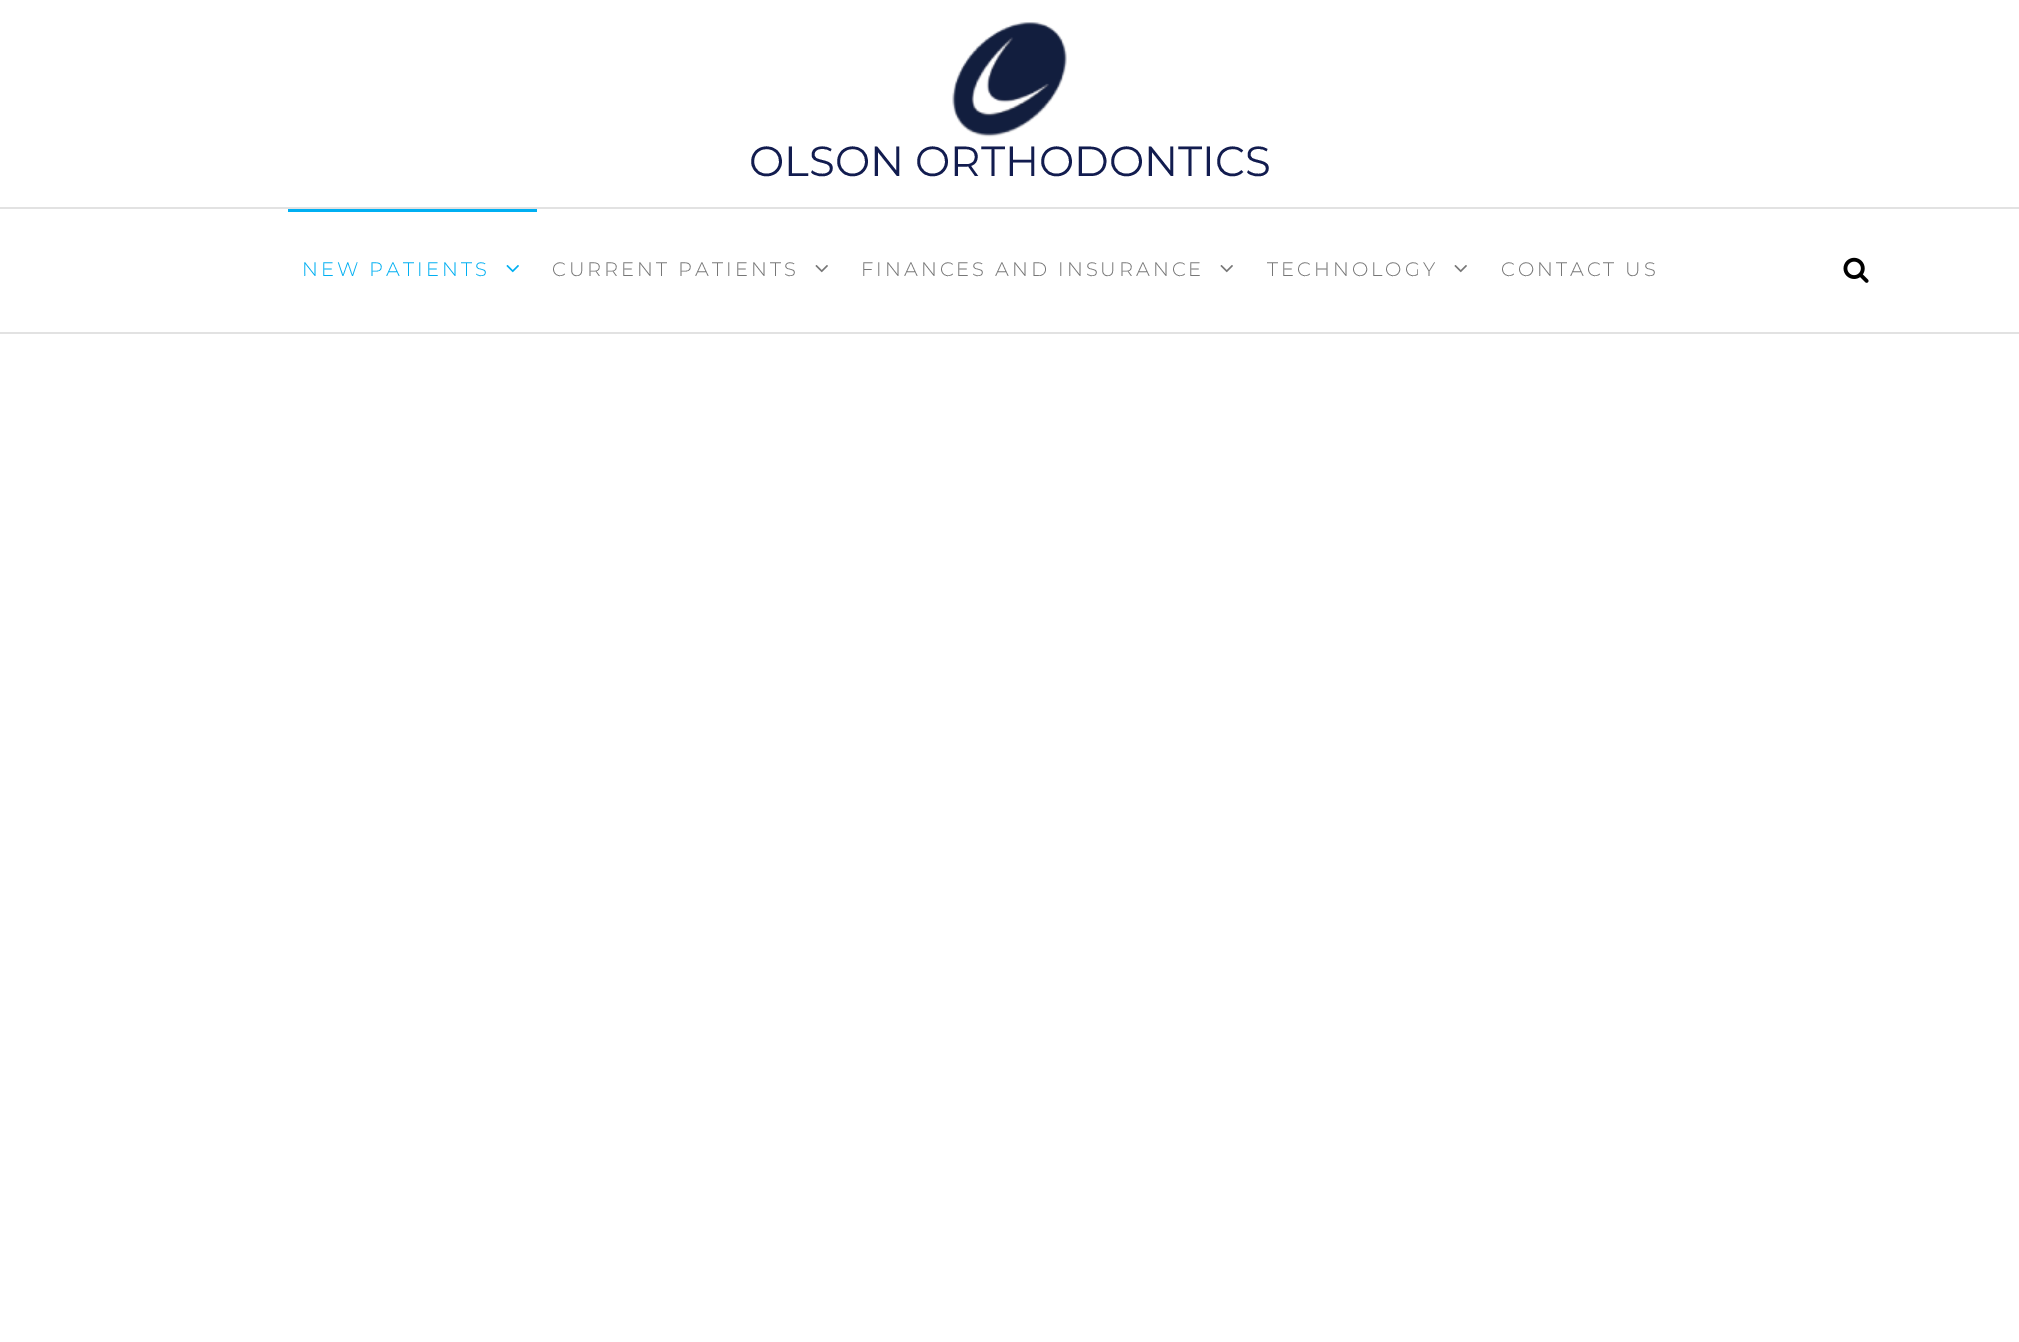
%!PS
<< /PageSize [2019 1342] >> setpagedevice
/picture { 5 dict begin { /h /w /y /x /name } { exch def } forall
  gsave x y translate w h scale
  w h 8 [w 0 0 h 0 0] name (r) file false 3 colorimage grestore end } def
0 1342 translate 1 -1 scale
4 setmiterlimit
1 setgray
0 0 2019 1342 rectfill
0.886 setgray
0 207 2019 2 rectfill
(img1.rgb) 952 22 115 115 picture
/Montserrat-Regular [42 0 0 -42 0 0] selectfont
0.071 0.11 0.31 setrgbcolor
749 176 moveto (OLSON ORTHODONTICS) show
0.886 setgray
0 332 2019 2 rectfill
0 0.686 0.949 setrgbcolor
288 209 249 3 rectfill
/Montserrat-Light [19.5 0 0 -19.5 0 0] selectfont
302 276 moveto 3 0 (NEW PATIENTS) ashow
(img2.rgb) 506 265 13 8 picture
0.467 setgray
552 276 moveto 3 0 (CURRENT PATIENTS) ashow
(img3.rgb) 815 265 13 8 picture
861 276 moveto 3 0 (FINANCES AND INSURANCE) ashow
(img3.rgb) 1220 265 13 8 picture
1267 276 moveto 3 0 (TECHNOLOGY) ashow
(img3.rgb) 1454 265 13 8 picture
1501 276 moveto 3 0 (CONTACT US) ashow
(img4.rgb) 1843 257 26 26 picture
showpage
